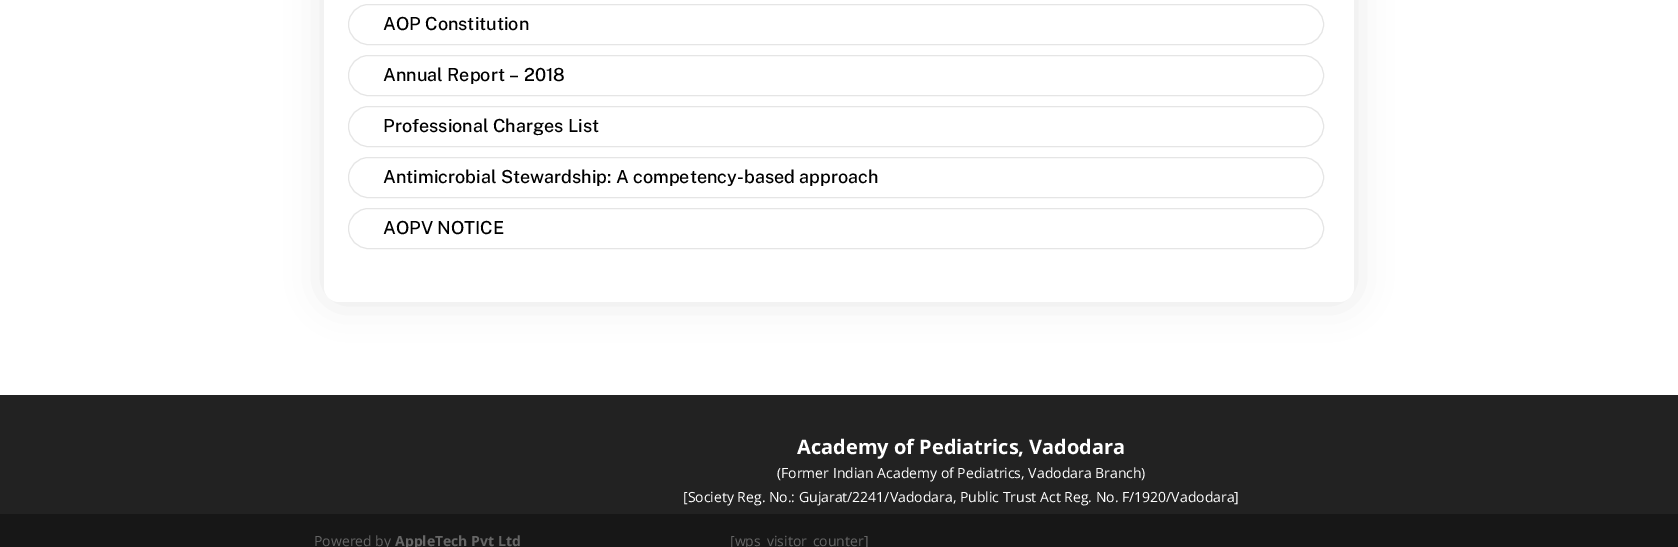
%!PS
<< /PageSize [1678 547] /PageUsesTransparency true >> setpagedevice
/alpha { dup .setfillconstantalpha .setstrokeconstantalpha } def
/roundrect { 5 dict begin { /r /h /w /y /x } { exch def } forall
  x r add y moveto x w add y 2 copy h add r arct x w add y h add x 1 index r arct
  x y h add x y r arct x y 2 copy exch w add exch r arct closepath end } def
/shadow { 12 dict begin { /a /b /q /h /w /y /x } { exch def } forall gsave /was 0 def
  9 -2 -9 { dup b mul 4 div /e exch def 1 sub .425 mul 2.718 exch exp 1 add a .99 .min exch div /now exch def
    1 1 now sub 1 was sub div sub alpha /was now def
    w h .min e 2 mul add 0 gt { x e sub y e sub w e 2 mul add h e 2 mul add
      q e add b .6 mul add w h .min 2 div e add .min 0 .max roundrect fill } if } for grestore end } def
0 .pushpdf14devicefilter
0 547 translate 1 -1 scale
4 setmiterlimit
1 setgray
0 0 1678 547 rectfill
0 setgray
324 -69 1030 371 15 18 0.1 shadow
1 setgray
324 -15 1030 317 15 roundrect fill
0.898 setgray
348.5 4.5 975 40 20 roundrect stroke
/PublicSans-Medium [18 0 0 -18 0 0] selectfont
0 setgray
383 30 moveto (AOP Constitution) show
0.898 setgray
348.5 55.5 975 40 20 roundrect stroke
0 setgray
383 81 moveto (Annual Report – 2018) show
0.898 setgray
348.5 106.5 975 40 20 roundrect stroke
0 setgray
383 132 moveto (Professional Charges List) show
0.898 setgray
348.5 157.5 975 40 20 roundrect stroke
0 setgray
383 183 moveto (Antimicrobial Stewardship: A competency-based approach) show
0.898 setgray
348.5 208.5 975 40 20 roundrect stroke
0 setgray
383 234 moveto (AOPV NOTICE) show
0.133 setgray
0 395 1678 119 rectfill
/OpenSans-Bold [20 0 0 -20 0 0] selectfont
1 setgray
797 454 moveto (Academy of Pediatrics, Vadodara) show
/OpenSans-Regular [14 0 0 -14 0 0] selectfont
777 478 moveto (\(Former Indian Academy of Pediatrics, Vadodara Branch\)) show
683 502 moveto ([Society Reg. No.: Gujarat/2241/Vadodara, Public Trust Act Reg. No. F/1920/Vadodara]) show
0.09 setgray
0 514 1678 33 rectfill
0.4 setgray
314 546 moveto (Powered by) show
/OpenSans-Bold [14 0 0 -14 0 0] selectfont
395 546 moveto (AppleTech Pvt Ltd) show
/OpenSans-Regular [14 0 0 -14 0 0] selectfont
730 546 moveto ([wps_visitor_counter]) show
.poppdf14devicefilter showpage
